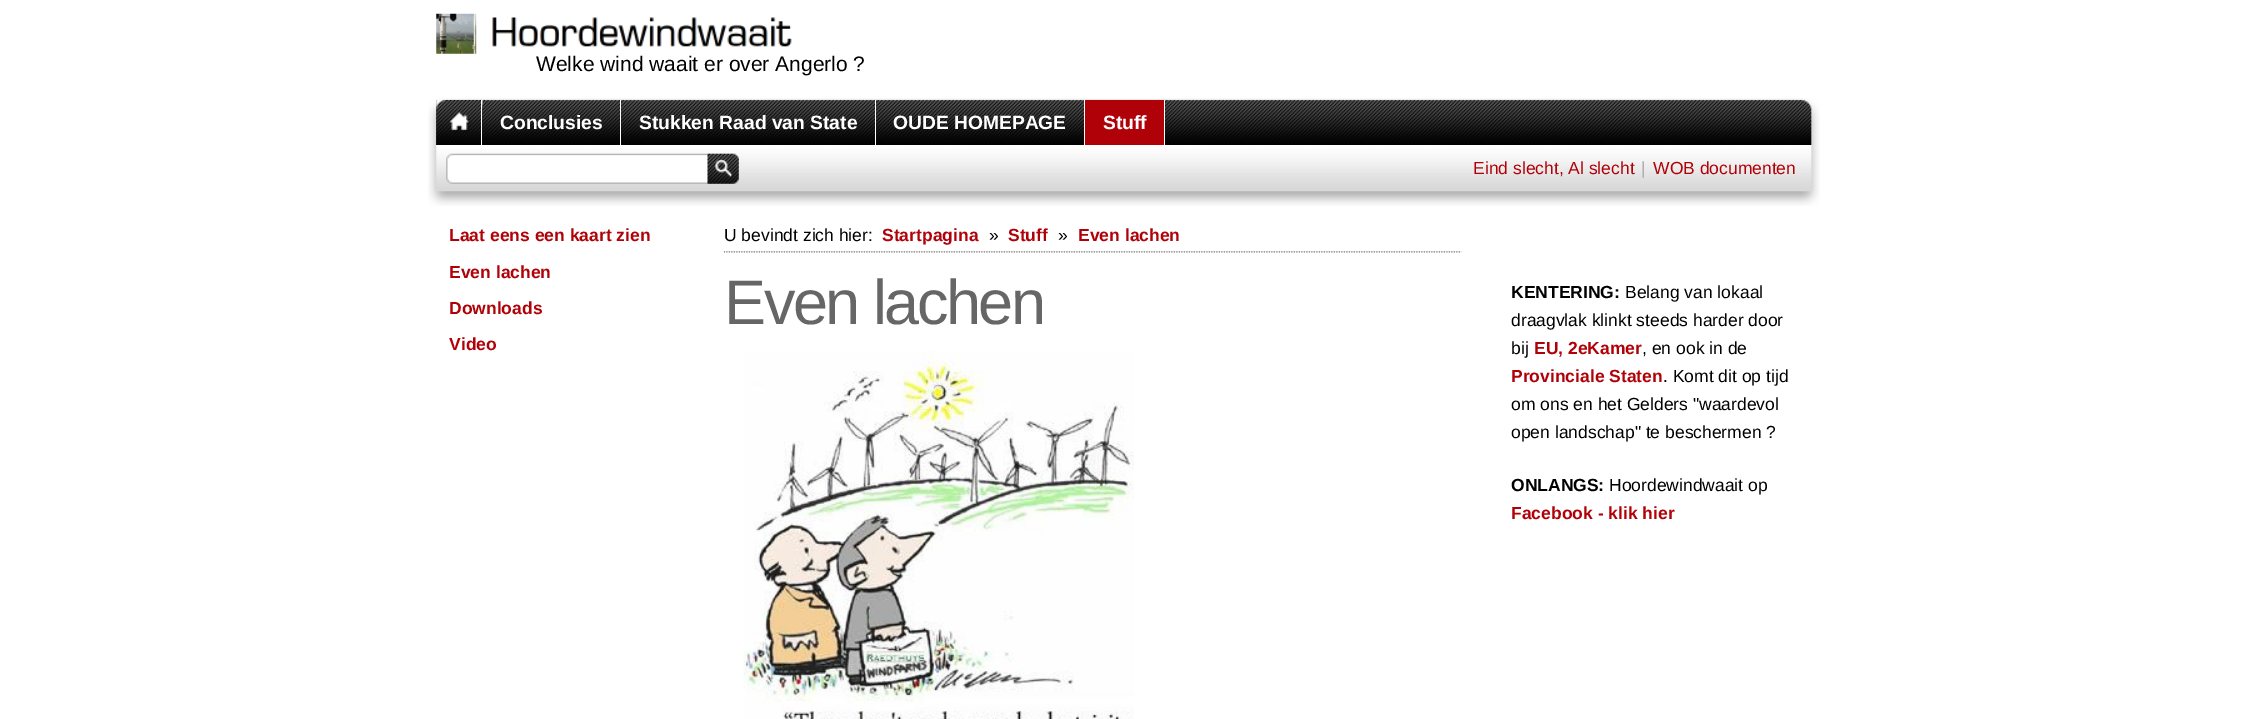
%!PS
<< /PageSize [2247 719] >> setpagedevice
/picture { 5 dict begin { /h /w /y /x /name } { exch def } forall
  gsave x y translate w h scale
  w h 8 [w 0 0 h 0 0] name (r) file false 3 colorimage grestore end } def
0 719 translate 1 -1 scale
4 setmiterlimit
1 setgray
0 0 2247 719 rectfill
(img1.rgb) 436 13 41 41 picture
(img2.rgb) 492 17 300 30 picture
/LiberationSans-Regular [21 0 0 -21 0 0] selectfont
0 setgray
536 71 moveto (Welke wind waait er over Angerlo ?) show
(img3.rgb) 428 98 1392 47 picture
(img4.rgb) 436 100 47 45 picture
1 setgray
481 100 1 45 rectfill
620 100 1 45 rectfill
/LiberationSans-Bold [19.25 0 0 -19.25 0 0] selectfont
500 129 moveto (Conclusies) show
875 100 1 45 rectfill
639 129 moveto (Stukken Raad van State) show
1084 100 1 45 rectfill
893 129 moveto (OUDE HOMEPAGE) show
0.694 0.004 0.031 setrgbcolor
1085 100 79 45 rectfill
1 setgray
1164 100 1 45 rectfill
1103 129 moveto (Stuff) show
(img5.rgb) 428 145 1392 61 picture
(img6.rgb) 446 153 293 31 picture
(img7.rgb) 707 153 32 31 picture
/LiberationSans-Regular [17.5 0 0 -17.5 0 0] selectfont
0.694 0.004 0.031 setrgbcolor
1473 174 moveto (Eind slecht, Al slecht) show
0.686 setgray
1641 174 moveto (|) show
0.694 0.004 0.031 setrgbcolor
1653 174 moveto (WOB documenten) show
/LiberationSans-Bold [17.5 0 0 -17.5 0 0] selectfont
449 241 moveto (Laat eens een kaart zien) show
449 278 moveto (Even lachen) show
449 314 moveto (Downloads) show
449 350 moveto (Video) show
(img8.rgb) 723 251 739 2 picture
/LiberationSans-Regular [17.5 0 0 -17.5 0 0] selectfont
0 setgray
724 241 moveto (U bevindt zich hier:) show
/LiberationSans-Bold [17.5 0 0 -17.5 0 0] selectfont
0.694 0.004 0.031 setrgbcolor
882 241 moveto (Startpagina) show
/LiberationSans-Regular [17.5 0 0 -17.5 0 0] selectfont
0 setgray
989 241 moveto (») show
/LiberationSans-Bold [17.5 0 0 -17.5 0 0] selectfont
0.694 0.004 0.031 setrgbcolor
1008 241 moveto (Stuff) show
/LiberationSans-Regular [17.5 0 0 -17.5 0 0] selectfont
0 setgray
1058 241 moveto (») show
/LiberationSans-Bold [17.5 0 0 -17.5 0 0] selectfont
0.694 0.004 0.031 setrgbcolor
1078 241 moveto (Even lachen) show
/LiberationSans-Regular [63 0 0 -63 0 0] selectfont
0.4 setgray
724 324 moveto -2.5 0 (Even lachen) ashow
(img9.rgb) 743 351 391 368 picture
/LiberationSans-Bold [17.5 0 0 -17.5 0 0] selectfont
0 setgray
1511 298 moveto (KENTERING:) show
/LiberationSans-Regular [17.5 0 0 -17.5 0 0] selectfont
1625 298 moveto (Belang van lokaal) show
1511 326 moveto (draagvlak klinkt steeds harder door) show
1511 354 moveto (bij) show
/LiberationSans-Bold [17.5 0 0 -17.5 0 0] selectfont
0.694 0.004 0.031 setrgbcolor
1534 354 moveto (EU, 2eKamer) show
/LiberationSans-Regular [17.5 0 0 -17.5 0 0] selectfont
0 setgray
1642 354 moveto (, en ook in de) show
/LiberationSans-Bold [17.5 0 0 -17.5 0 0] selectfont
0.694 0.004 0.031 setrgbcolor
1511 382 moveto (Provinciale Staten) show
/LiberationSans-Regular [17.5 0 0 -17.5 0 0] selectfont
0 setgray
1663 382 moveto (. Komt dit op tijd) show
1511 410 moveto (om ons en het Gelders "waardevol) show
1511 438 moveto (open landschap" te beschermen ?) show
/LiberationSans-Bold [17.5 0 0 -17.5 0 0] selectfont
1511 491 moveto (ONLANGS:) show
/LiberationSans-Regular [17.5 0 0 -17.5 0 0] selectfont
1609 491 moveto (Hoordewindwaait op) show
/LiberationSans-Bold [17.5 0 0 -17.5 0 0] selectfont
0.694 0.004 0.031 setrgbcolor
1511 519 moveto (Facebook - klik hier) show
showpage
